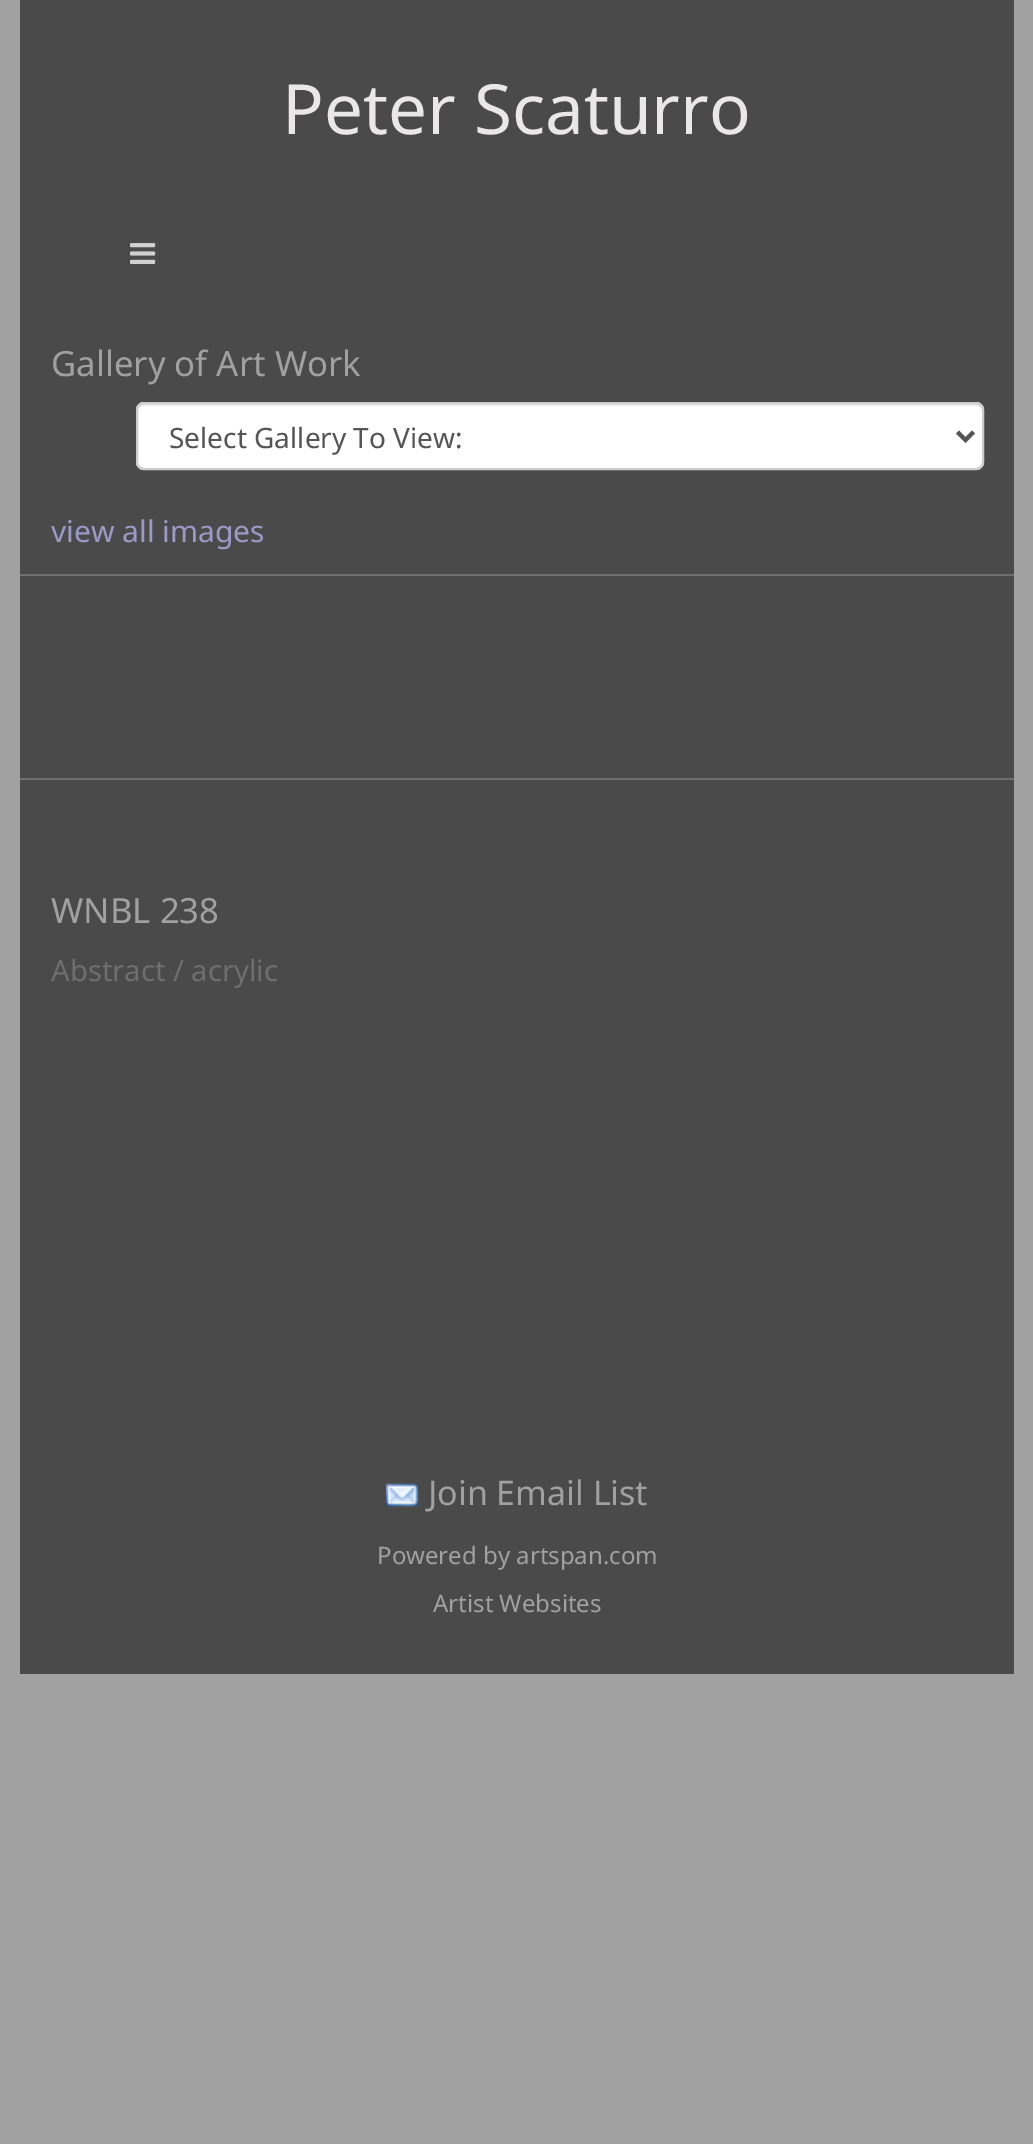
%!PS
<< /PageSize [1033 2144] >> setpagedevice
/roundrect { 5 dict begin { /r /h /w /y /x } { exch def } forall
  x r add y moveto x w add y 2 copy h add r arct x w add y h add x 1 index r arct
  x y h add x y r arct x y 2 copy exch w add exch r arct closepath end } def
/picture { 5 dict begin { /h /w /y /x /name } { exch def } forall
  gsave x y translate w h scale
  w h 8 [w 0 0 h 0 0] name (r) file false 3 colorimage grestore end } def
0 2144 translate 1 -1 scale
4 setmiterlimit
0.631 setgray
0 0 1033 2144 rectfill
0.29 setgray
20 0 994 1674 rectfill
/NotoSans-Regular [69.25 0 0 -69.25 0 0] selectfont
0.914 0.906 0.906 setrgbcolor
282 134 moveto (Peter Scaturro) show
(img1.rgb) 130 243 26 21 picture
/NotoSans-Regular [34.75 0 0 -34.75 0 0] selectfont
0.631 setgray
51 376 moveto (Gallery of Art Work) show
1 setgray
136 402 848 68 8 roundrect fill
0.925 setgray
newpath 144 406 moveto 976 406 lineto 979 406 982 409 982 412 curveto 982 408 981 404 976 404 curveto 144 404 lineto 139 404 138 408 138 412 curveto 138 409 141 406 144 406 curveto closepath fill
0.8 setgray
2 setlinewidth
137 403 846 66 7 roundrect stroke
0.333 setgray
4 setlinewidth
newpath 957.5 432 moveto 965.5 440 lineto 973.5 432 lineto stroke
/NotoSans-Regular [28 0 0 -28 0 0] selectfont
169 448 moveto (Select Gallery To View:) show
/NotoSans-Regular [30 0 0 -30 0 0] selectfont
0.604 0.604 0.776 setrgbcolor
51 542 moveto (view all images) show
0.439 0.431 0.431 setrgbcolor
20 574 994 2 rectfill
20 778 994 2 rectfill
/NotoSans-Regular [34.75 0 0 -34.75 0 0] selectfont
0.631 setgray
51 923 moveto (WNBL 238) show
/NotoSans-Regular [29.25 0 0 -29.25 0 0] selectfont
0.439 0.431 0.431 setrgbcolor
51 981 moveto (Abstract / acrylic) show
(img2.rgb) 386 1483 32 24 picture
/NotoSans-Regular [34 0 0 -34 0 0] selectfont
0.631 setgray
428 1505 moveto (Join Email List) show
/NotoSans-Regular [24 0 0 -24 0 0] selectfont
377 1564 moveto (Powered by artspan.com) show
433 1612 moveto (Artist Websites) show
showpage
